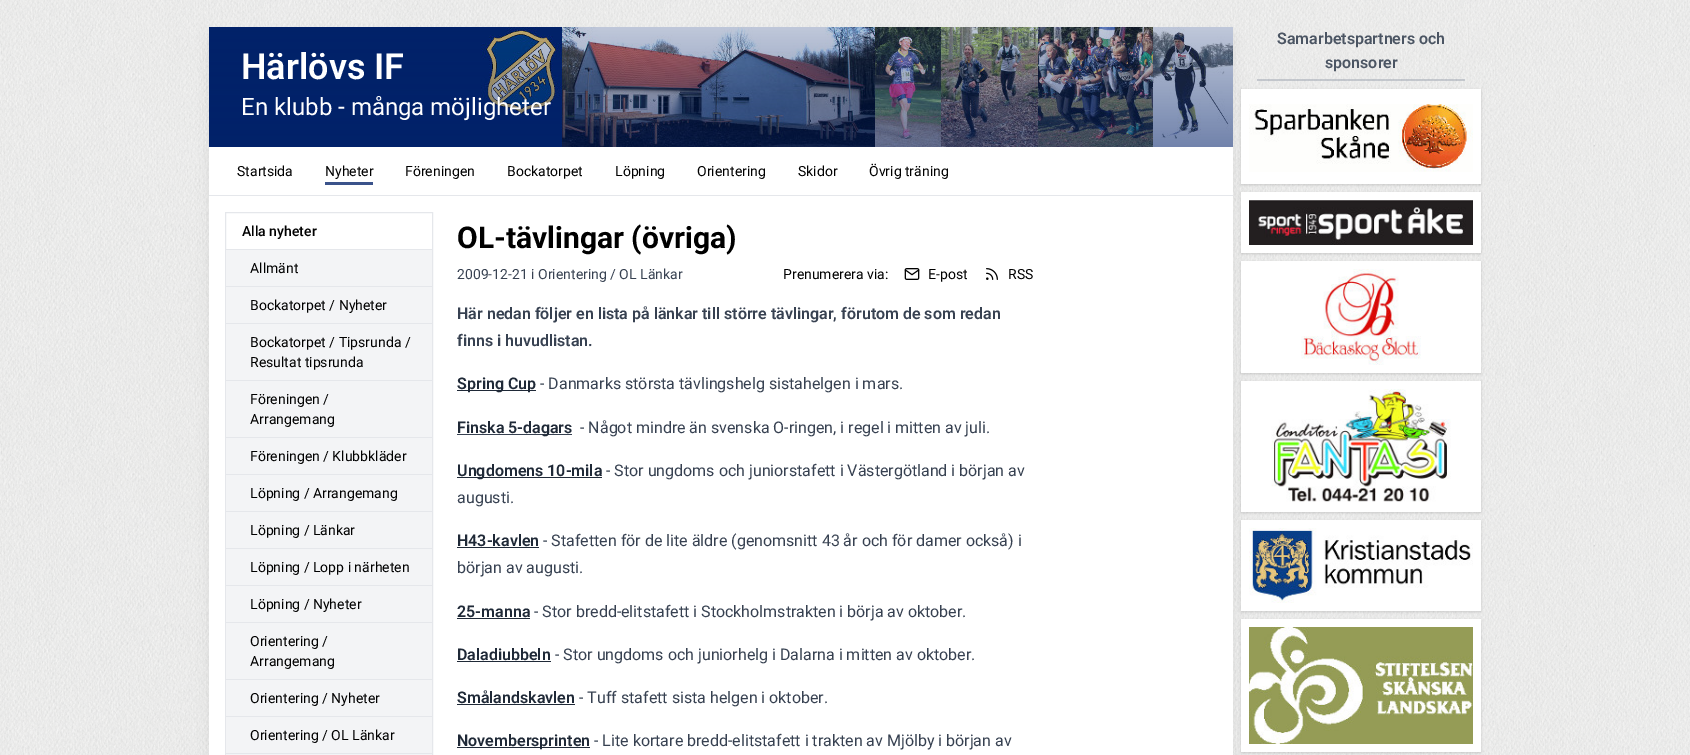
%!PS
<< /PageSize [1690 755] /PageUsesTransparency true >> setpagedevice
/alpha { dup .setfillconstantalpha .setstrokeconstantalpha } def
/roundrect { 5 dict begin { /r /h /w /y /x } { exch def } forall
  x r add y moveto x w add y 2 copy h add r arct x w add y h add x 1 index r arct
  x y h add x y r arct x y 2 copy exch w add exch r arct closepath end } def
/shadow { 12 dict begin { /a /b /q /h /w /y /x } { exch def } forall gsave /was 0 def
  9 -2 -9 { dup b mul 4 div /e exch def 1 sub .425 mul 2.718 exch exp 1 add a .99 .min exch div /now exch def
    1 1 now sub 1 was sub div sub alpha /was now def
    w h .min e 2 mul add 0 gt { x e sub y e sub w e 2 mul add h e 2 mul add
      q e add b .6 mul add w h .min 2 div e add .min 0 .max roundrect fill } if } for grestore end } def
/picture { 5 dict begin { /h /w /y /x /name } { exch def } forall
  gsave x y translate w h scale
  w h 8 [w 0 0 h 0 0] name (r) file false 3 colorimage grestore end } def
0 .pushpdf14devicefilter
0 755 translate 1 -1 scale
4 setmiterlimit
1 setgray
0 0 1690 755 rectfill
(img1.rgb) 0 0 1690 755 picture
0 setgray
212 40 1018 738 0 7.5 0.1 shadow
1 setgray
209 147 1024 608 rectfill
(img2.rgb) 209 27 1024 120 picture
/Roboto-SemiBold [36 0 0 -36 0 0] selectfont
241 79 moveto (Härlövs IF) show
/Roboto-Regular [24 0 0 -24 0 0] selectfont
241 115 moveto (En klubb - många möjligheter) show
0.898 0.906 0.922 setrgbcolor
209 195 1024 1 rectfill
/Roboto-Regular [14 0 0 -14 0 0] selectfont
0 setgray
237 176 moveto (Startsida) show
0.231 0.325 0.545 setrgbcolor
325 182 48 3 rectfill
0 setgray
325 176 moveto (Nyheter) show
405 176 moveto (Föreningen) show
507 176 moveto (Bockatorpet) show
615 176 moveto (Löpning) show
697 176 moveto (Orientering) show
798 176 moveto (Skidor) show
869 176 moveto (Övrig träning) show
0.898 0.906 0.922 setrgbcolor
225.5 212.5 207 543 rectstroke
/Roboto-Medium [14 0 0 -14 0 0] selectfont
0 setgray
242 236 moveto (Alla nyheter) show
0.898 0.906 0.922 setrgbcolor
226 249 206 1 rectfill
0.953 0.957 0.965 setrgbcolor
226 250 206 36 rectfill
/Roboto-Regular [14 0 0 -14 0 0] selectfont
0 setgray
250 273 moveto (Allmänt) show
0.898 0.906 0.922 setrgbcolor
226 286 206 1 rectfill
0.953 0.957 0.965 setrgbcolor
226 287 206 36 rectfill
0 setgray
250 310 moveto (Bockatorpet / Nyheter) show
0.898 0.906 0.922 setrgbcolor
226 323 206 1 rectfill
0.953 0.957 0.965 setrgbcolor
226 324 206 56 rectfill
0 setgray
250 347 moveto (Bockatorpet / Tipsrunda /) show
250 367 moveto (Resultat tipsrunda) show
0.898 0.906 0.922 setrgbcolor
226 380 206 1 rectfill
0.953 0.957 0.965 setrgbcolor
226 381 206 56 rectfill
0 setgray
250 404 moveto (Föreningen /) show
250 424 moveto (Arrangemang) show
0.898 0.906 0.922 setrgbcolor
226 437 206 1 rectfill
0.953 0.957 0.965 setrgbcolor
226 438 206 36 rectfill
0 setgray
250 461 moveto (Föreningen / Klubbkläder) show
0.898 0.906 0.922 setrgbcolor
226 474 206 1 rectfill
0.953 0.957 0.965 setrgbcolor
226 475 206 36 rectfill
0 setgray
250 498 moveto (Löpning / Arrangemang) show
0.898 0.906 0.922 setrgbcolor
226 511 206 1 rectfill
0.953 0.957 0.965 setrgbcolor
226 512 206 36 rectfill
0 setgray
250 535 moveto (Löpning / Länkar) show
0.898 0.906 0.922 setrgbcolor
226 548 206 1 rectfill
0.953 0.957 0.965 setrgbcolor
226 549 206 36 rectfill
0 setgray
250 572 moveto (Löpning / Lopp i närheten) show
0.898 0.906 0.922 setrgbcolor
226 585 206 1 rectfill
0.953 0.957 0.965 setrgbcolor
226 586 206 36 rectfill
0 setgray
250 609 moveto (Löpning / Nyheter) show
0.898 0.906 0.922 setrgbcolor
226 622 206 1 rectfill
0.953 0.957 0.965 setrgbcolor
226 623 206 56 rectfill
0 setgray
250 646 moveto (Orientering /) show
250 666 moveto (Arrangemang) show
0.898 0.906 0.922 setrgbcolor
226 679 206 1 rectfill
0.953 0.957 0.965 setrgbcolor
226 680 206 36 rectfill
0 setgray
250 703 moveto (Orientering / Nyheter) show
0.898 0.906 0.922 setrgbcolor
226 716 206 1 rectfill
0.953 0.957 0.965 setrgbcolor
226 717 206 36 rectfill
0 setgray
250 740 moveto (Orientering / OL Länkar) show
0.898 0.906 0.922 setrgbcolor
226 753 206 1 rectfill
0.953 0.957 0.965 setrgbcolor
226 754 206 1 rectfill
/Roboto-Bold [30 0 0 -30 0 0] selectfont
0 setgray
457 248 moveto (OL-tävlingar \(övriga\)) show
/Roboto-Regular [14 0 0 -14 0 0] selectfont
0.216 0.255 0.318 setrgbcolor
457 279 moveto (2009-12-21 i Orientering / OL Länkar) show
0 setgray
783 279 moveto (Prenumerera via:) show
(img3.rgb) 904 268 16 12 picture
928 279 moveto (E-post) show
(img4.rgb) 986 268 12 12 picture
1008 279 moveto (RSS) show
/Roboto-SemiBold [16 0 0 -16 0 0] selectfont
0.216 0.255 0.318 setrgbcolor
457 319 moveto (Här nedan följer en lista på länkar till större tävlingar, förutom de som redan) show
457 346 moveto (finns i huvudlistan.) show
0.122 0.161 0.216 setrgbcolor
457 390 79 1 rectfill
457 389 moveto (Spring Cup) show
/Roboto-Regular [16 0 0 -16 0 0] selectfont
0.216 0.255 0.318 setrgbcolor
540 389 moveto (- Danmarks största tävlingshelg sistahelgen i mars.) show
457 434 115 1 rectfill
/Roboto-SemiBold [16 0 0 -16 0 0] selectfont
0.122 0.161 0.216 setrgbcolor
457 433 moveto (Finska 5-dagars) show
/Roboto-Regular [16 0 0 -16 0 0] selectfont
0.216 0.255 0.318 setrgbcolor
580 433 moveto (- Något mindre än svenska O-ringen, i regel i mitten av juli.) show
0.122 0.161 0.216 setrgbcolor
457 477 145 1 rectfill
/Roboto-SemiBold [16 0 0 -16 0 0] selectfont
457 476 moveto (Ungdomens 10-mila) show
/Roboto-Regular [16 0 0 -16 0 0] selectfont
0.216 0.255 0.318 setrgbcolor
606 476 moveto (- Stor ungdoms och juniorstafett i Västergötland i början av) show
457 503 moveto (augusti.) show
/Roboto-SemiBold [16 0 0 -16 0 0] selectfont
0.122 0.161 0.216 setrgbcolor
457 546 moveto (H43-kavlen) show
457 547 82 1 rectfill
/Roboto-Regular [16 0 0 -16 0 0] selectfont
0.216 0.255 0.318 setrgbcolor
543 546 moveto (- Stafetten för de lite äldre \(genomsnitt 43 år och för damer också\) i) show
457 573 moveto (början av augusti.) show
/Roboto-SemiBold [16 0 0 -16 0 0] selectfont
0.122 0.161 0.216 setrgbcolor
457 617 moveto (25-manna) show
457 618 73 1 rectfill
/Roboto-Regular [16 0 0 -16 0 0] selectfont
0.216 0.255 0.318 setrgbcolor
534 617 moveto (- Stor bredd-elitstafett i Stockholmstrakten i börja av oktober.) show
/Roboto-SemiBold [16 0 0 -16 0 0] selectfont
0.122 0.161 0.216 setrgbcolor
457 660 moveto (Daladiubbeln) show
457 661 94 1 rectfill
/Roboto-Regular [16 0 0 -16 0 0] selectfont
0.216 0.255 0.318 setrgbcolor
555 660 moveto (- Stor ungdoms och juniorhelg i Dalarna i mitten av oktober.) show
/Roboto-SemiBold [16 0 0 -16 0 0] selectfont
0.122 0.161 0.216 setrgbcolor
457 703 moveto (Smålandskavlen) show
457 704 118 1 rectfill
/Roboto-Regular [16 0 0 -16 0 0] selectfont
0.216 0.255 0.318 setrgbcolor
579 703 moveto (- Tuff stafett sista helgen i oktober.) show
0.122 0.161 0.216 setrgbcolor
457 747 133 1 rectfill
/Roboto-SemiBold [16 0 0 -16 0 0] selectfont
457 746 moveto (Novembersprinten) show
/Roboto-Regular [16 0 0 -16 0 0] selectfont
0.216 0.255 0.318 setrgbcolor
594 746 moveto (- Lite kortare bredd-elitstafett i trakten av Mjölby i början av) show
0.5 alpha
0.612 0.639 0.686 setrgbcolor
1257 79 208 2 rectfill
/Roboto-SemiBold [16 0 0 -16 0 0] selectfont
1 alpha
0.294 0.333 0.388 setrgbcolor
1277 44 moveto (Samarbetspartners och) show
1325 68 moveto (sponsorer) show
0 setgray
1242 91 238 93 0 1 0.1 shadow
1241 90 240 95 0 1.5 0.1 shadow
1 setgray
1241 89 240 95 rectfill
(img5.rgb) 1249 104 224 68 picture
0 setgray
1242 194 238 59 0 1 0.1 shadow
1241 193 240 61 0 1.5 0.1 shadow
1 setgray
1241 192 240 61 rectfill
(img6.rgb) 1249 200 224 45 picture
0 setgray
1242 263 238 110 0 1 0.1 shadow
1241 262 240 112 0 1.5 0.1 shadow
1 setgray
1241 261 240 112 rectfill
(img7.rgb) 1301 269 120 96 picture
0 setgray
1242 383 238 129 0 1 0.1 shadow
1241 382 240 131 0 1.5 0.1 shadow
1 setgray
1241 381 240 131 rectfill
(img8.rgb) 1271 389 180 113 picture
0 setgray
1242 522 238 89 0 1 0.1 shadow
1241 521 240 91 0 1.5 0.1 shadow
1 setgray
1241 520 240 91 rectfill
(img9.rgb) 1249 528 224 75 picture
0 setgray
1242 621 238 131 0 1 0.1 shadow
1241 620 240 133 0 1.5 0.1 shadow
1 setgray
1241 619 240 133 rectfill
(img10.rgb) 1249 627 224 117 picture
.poppdf14devicefilter showpage
